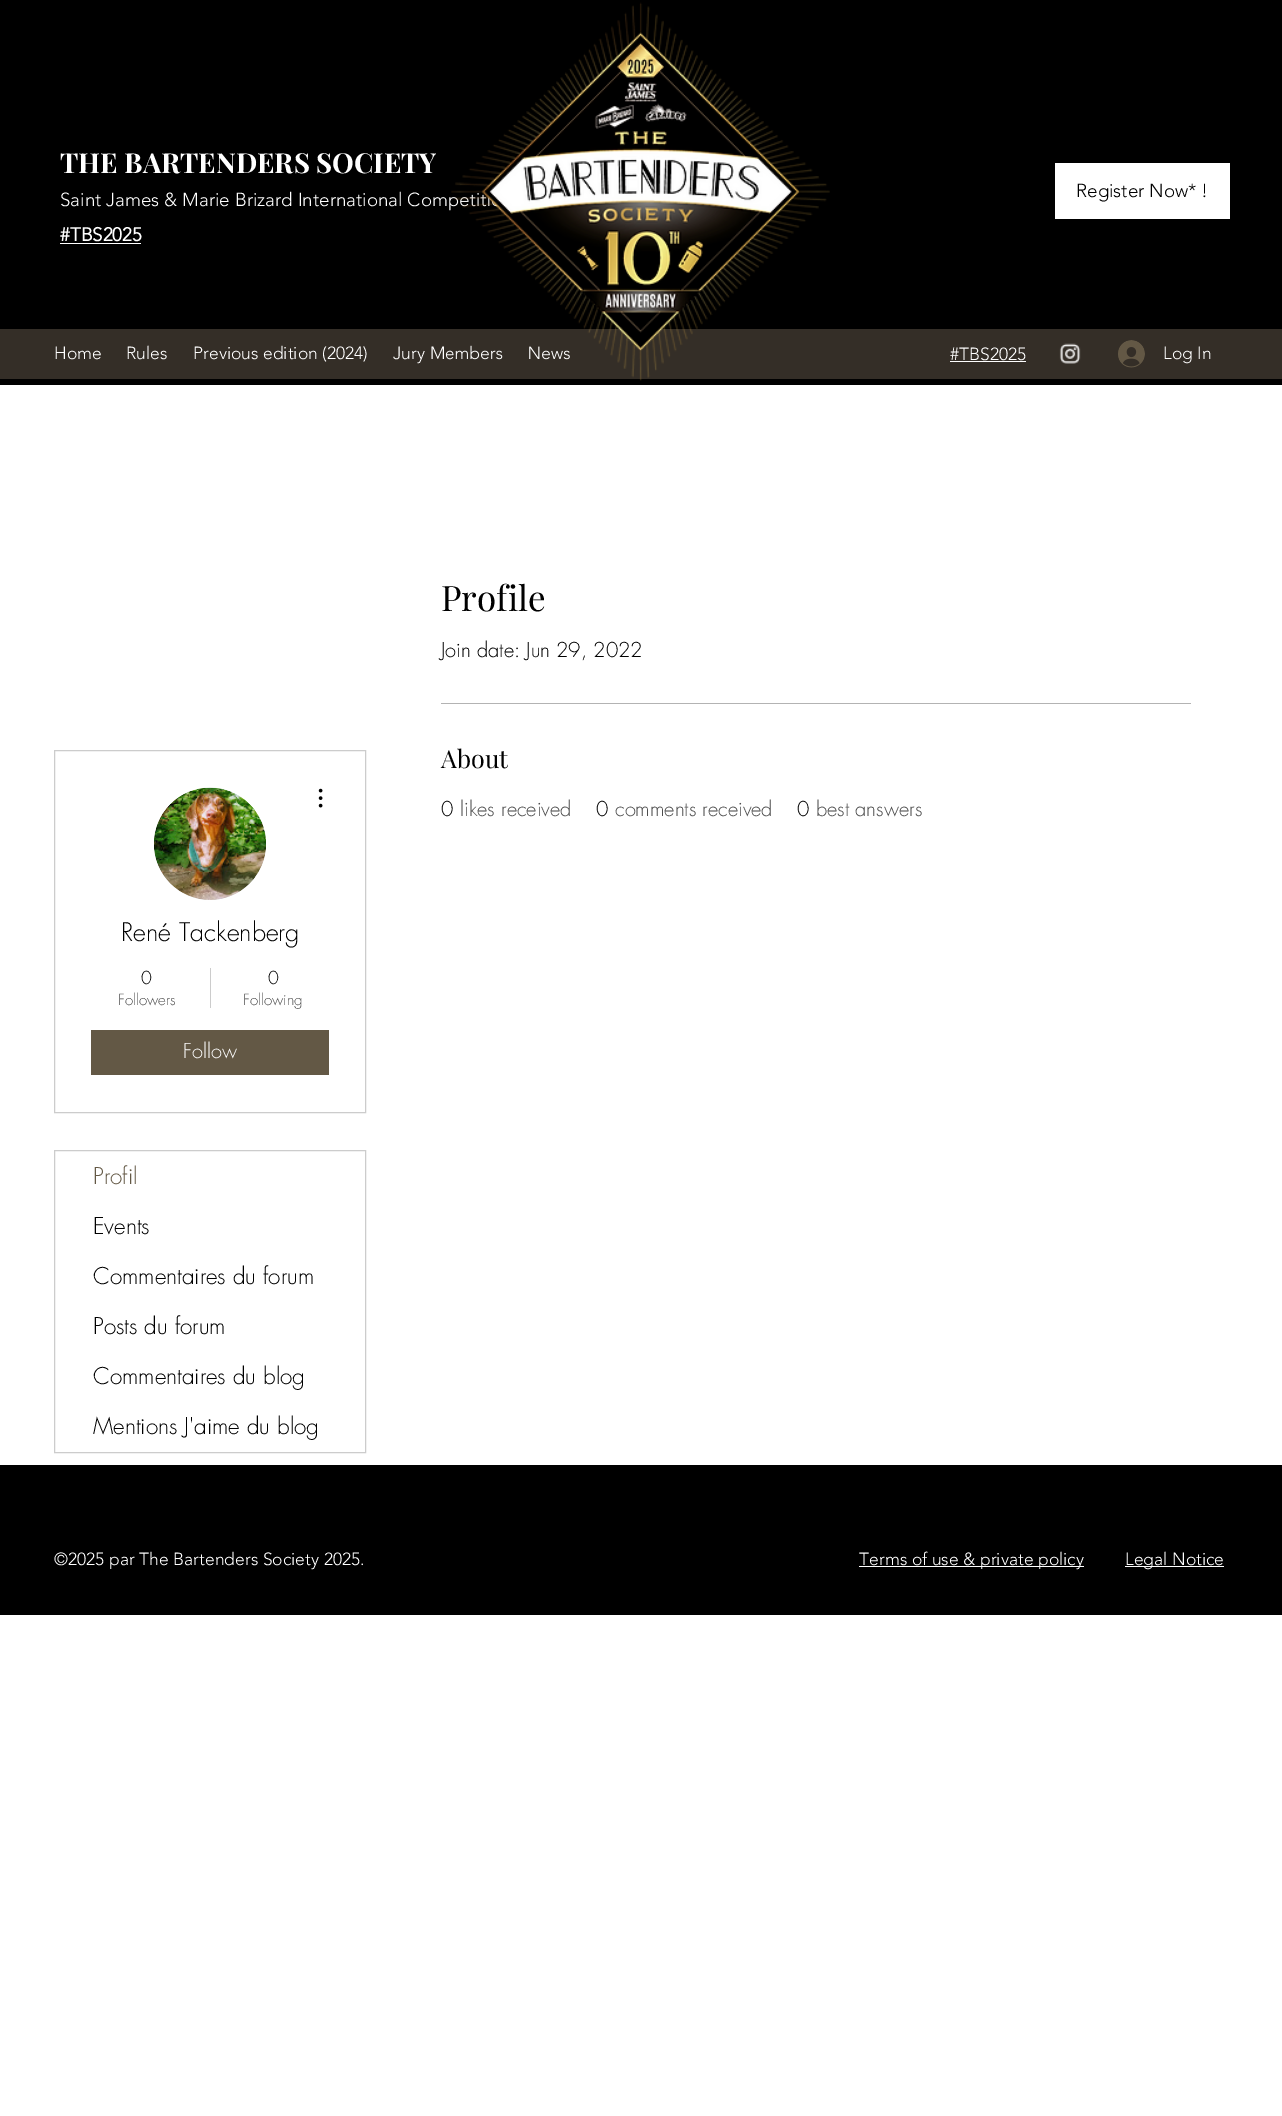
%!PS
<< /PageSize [1282 2116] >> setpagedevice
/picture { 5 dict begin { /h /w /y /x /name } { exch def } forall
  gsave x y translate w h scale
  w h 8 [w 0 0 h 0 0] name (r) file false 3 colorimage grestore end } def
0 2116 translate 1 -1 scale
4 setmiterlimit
1 setgray
0 0 1282 2116 rectfill
0 setgray
0 0 1282 385 rectfill
/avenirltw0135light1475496-Light [18.75 0 0 -18.75 0 0] selectfont
1 setgray
60 206 moveto (Saint James & Marie Brizard International Competiti) show
0.204 0.18 0.153 setrgbcolor
0 329 1282 50 rectfill
/avenirltw0135light1475496-Light [17.5 0 0 -17.5 0 0] selectfont
1 setgray
393 359 moveto (Jury Members) show
528 359 moveto (News) show
(img1.rgb) 451 2 379 379 picture
/PlayfairDisplay-Bold [27.5 0 0 -27.5 0 0] selectfont
60 173 moveto (THE BARTENDERS SOCIETY) show
/avenirltw0135light1475496-Bold [18.75 0 0 -18.75 0 0] selectfont
60 241 moveto (#TBS2025) show
60 243 81 1 rectfill
1055 163 175 56 rectfill
/avenirltw0135light1475496-Light [18.75 0 0 -18.75 0 0] selectfont
0 setgray
1076 197 moveto (Register Now* !) show
/avenirltw0135light1475496-Light [17.5 0 0 -17.5 0 0] selectfont
1 setgray
54 359 moveto (Home) show
126 359 moveto (Rules) show
193 359 moveto (Previous edition \(2024\)) show
950 360 moveto (#TBS2025) show
950 361 76 1 rectfill
(img2.rgb) 1059 343 22 21 picture
(img3.rgb) 1118 340 27 28 picture
1163 359 moveto (Log In) show
/PlayfairDisplay-Regular [35 0 0 -35 0 0] selectfont
0 setgray
441 611 moveto (Profile) show
/futura-Light [20 0 0 -20 0 0] selectfont
441 657 moveto (Join date: Jun 29, 2022) show
0.702 setgray
441 703 750 1 rectfill
/PlayfairDisplay-Regular [25 0 0 -25 0 0] selectfont
0 setgray
441 768 moveto (About) show
/futura-Light [20 0 0 -20 0 0] selectfont
441 816 moveto (0) show
0.302 setgray
460 816 moveto (likes received) show
0 setgray
596 816 moveto (0) show
0.302 setgray
615 816 moveto (comments received) show
0 setgray
797 816 moveto (0) show
0.302 setgray
816 816 moveto (best answers) show
0.8 setgray
54.5 750.5 311 362 rectstroke
0.847 setgray
newpath 210 844 56 0 360 arc closepath fill
(img4.rgb) 154 787 112 113 picture
(img5.rgb) 318 788 5 20 picture
/futura-Light [25 0 0 -25 0 0] selectfont
0 setgray
121 941 moveto (René Tackenberg) show
/futura-Light [17.5 0 0 -17.5 0 0] selectfont
141 984 moveto (0) show
/futura-Light [15 0 0 -15 0 0] selectfont
0.302 setgray
118 1005 moveto (Followers) show
0.8 setgray
210 968 1 40 rectfill
/futura-Light [17.5 0 0 -17.5 0 0] selectfont
0 setgray
268 984 moveto (0) show
/futura-Light [15 0 0 -15 0 0] selectfont
0.302 setgray
243 1005 moveto (Following) show
0.388 0.345 0.271 setrgbcolor
91 1030 238 45 rectfill
/futura-Light [20 0 0 -20 0 0] selectfont
1 setgray
183 1058 moveto (Follow) show
0.8 setgray
54.5 1150.5 311 302 rectstroke
/futura-Light [22.5 0 0 -22.5 0 0] selectfont
0.388 0.345 0.271 setrgbcolor
93 1184 moveto (Profil) show
0 setgray
93 1234 moveto (Events) show
93 1284 moveto (Commentaires du forum) show
93 1334 moveto (Posts du forum) show
93 1384 moveto (Commentaires du blog) show
93 1434 moveto (Mentions J'aime du blog) show
0 1465 1282 150 rectfill
/avenirltw0135light1475496-Light [17.5 0 0 -17.5 0 0] selectfont
1 setgray
54 1565 moveto (©2025 par The Bartenders Society 2025.) show
859 1566 225 1 rectfill
859 1565 moveto (Terms of use & private policy) show
1125 1566 99 1 rectfill
1125 1565 moveto (Legal Notice) show
showpage
